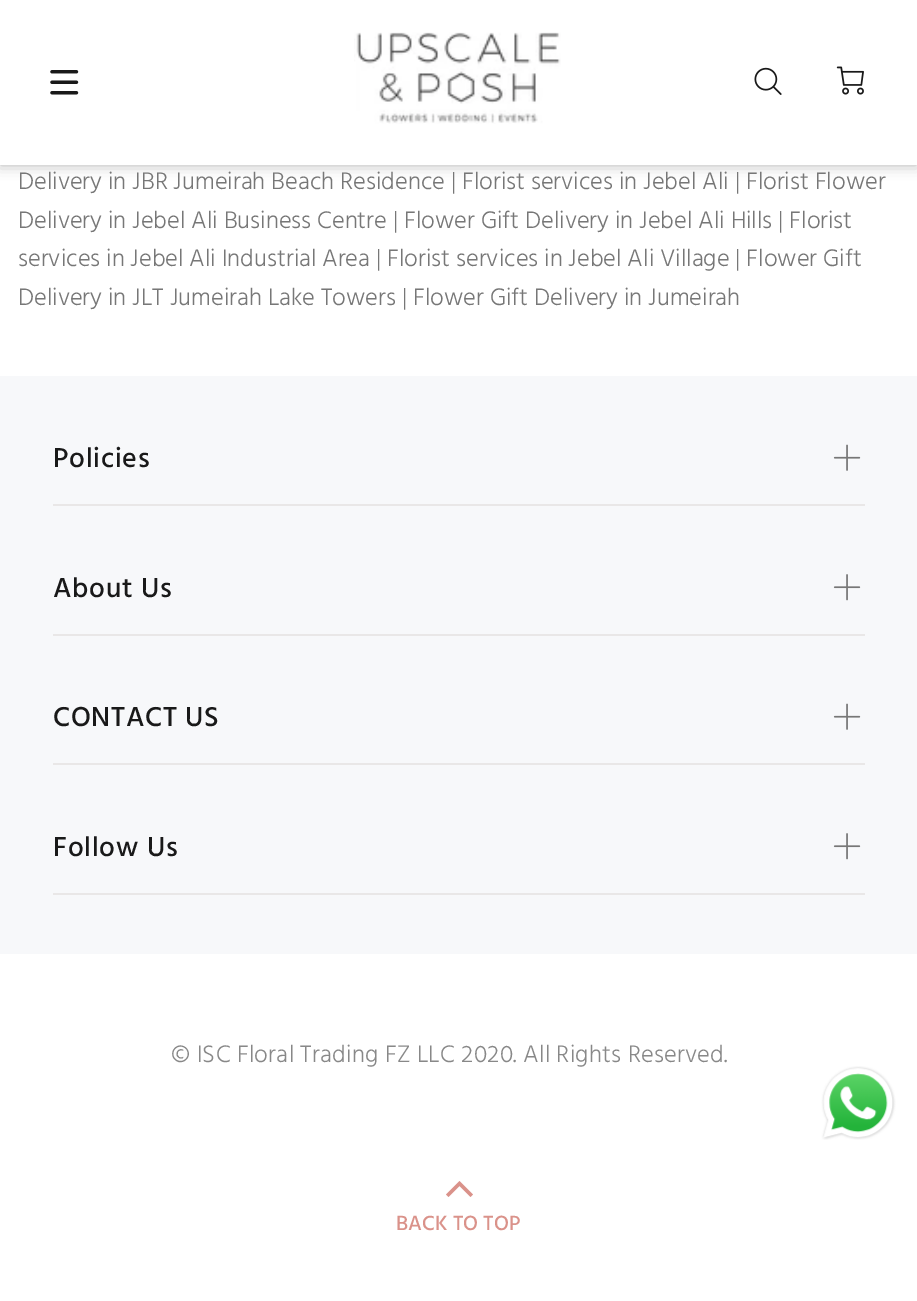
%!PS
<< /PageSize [917 1301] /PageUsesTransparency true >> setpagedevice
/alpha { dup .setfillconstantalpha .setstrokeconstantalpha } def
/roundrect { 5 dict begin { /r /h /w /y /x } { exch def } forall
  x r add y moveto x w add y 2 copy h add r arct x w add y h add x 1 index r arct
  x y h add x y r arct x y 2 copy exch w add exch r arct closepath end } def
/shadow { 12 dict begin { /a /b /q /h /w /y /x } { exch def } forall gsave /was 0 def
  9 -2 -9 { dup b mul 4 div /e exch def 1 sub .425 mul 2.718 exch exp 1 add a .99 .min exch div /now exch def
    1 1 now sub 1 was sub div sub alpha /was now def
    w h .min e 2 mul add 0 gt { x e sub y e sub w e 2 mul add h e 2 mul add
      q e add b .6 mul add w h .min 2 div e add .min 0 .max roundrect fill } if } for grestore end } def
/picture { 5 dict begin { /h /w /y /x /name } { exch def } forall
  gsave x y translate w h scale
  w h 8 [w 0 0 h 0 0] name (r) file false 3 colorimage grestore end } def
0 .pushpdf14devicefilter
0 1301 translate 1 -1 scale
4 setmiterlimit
1 setgray
0 0 917 1301 rectfill
0 setgray
0 0 917 165 0 7 0.3 shadow
1 setgray
0 0 917 165 rectfill
(img1.rgb) 50 70 29 25 picture
(img2.rgb) 354 32 207 92 picture
(img3.rgb) 754 67 28 28 picture
(img4.rgb) 836 66 28 29 picture
/Hind-Light [24.5 0 0 -24.5 0 0] selectfont
0.467 setgray
18 189 moveto (Delivery in JBR Jumeirah Beach Residence | Florist services in Jebel Ali | Florist Flower) show
18 228 moveto (Delivery in Jebel Ali Business Centre | Flower Gift Delivery in Jebel Ali Hills | Florist) show
18 266 moveto (services in Jebel Ali Industrial Area | Florist services in Jebel Ali Village | Flower Gift) show
18 305 moveto (Delivery in JLT Jumeirah Lake Towers | Flower Gift Delivery in Jumeirah) show
0.969 0.973 0.98 setrgbcolor
0 376 917 578 rectfill
0.914 0.906 0.906 setrgbcolor
53 504 812 2 rectfill
/Hind-Medium [28 0 0 -28 0 0] selectfont
0.098 setgray
53 467 moveto 0.75 0 (Policies) ashow
(img5.rgb) 833 444 28 27 picture
0.914 0.906 0.906 setrgbcolor
53 634 812 2 rectfill
0.098 setgray
53 597 moveto 0.75 0 (About Us) ashow
(img6.rgb) 833 574 28 27 picture
0.914 0.906 0.906 setrgbcolor
53 763 812 2 rectfill
0.098 setgray
53 726 moveto 0.75 0 (CONTACT US) ashow
(img5.rgb) 833 703 28 27 picture
0.914 0.906 0.906 setrgbcolor
53 893 812 2 rectfill
0.098 setgray
53 856 moveto 0.75 0 (Follow Us) ashow
(img6.rgb) 833 833 28 27 picture
/Hind-Light [24.5 0 0 -24.5 0 0] selectfont
0.533 setgray
171 1062 moveto 0.25 0 (© ISC Floral Trading FZ LLC 2020. All Rights Reserved.) ashow
(img7.rgb) 821 1066 75 74 picture
0.855 0.573 0.541 setrgbcolor
newpath 470.5 1197 moveto 459.5 1186 lineto 448.5 1197 lineto 446 1194.5 lineto 459.5 1181 lineto 473 1194.5 lineto closepath fill
/Hind-Medium [21 0 0 -21 0 0] selectfont
396 1230 moveto (BACK TO TOP) show
.poppdf14devicefilter showpage
